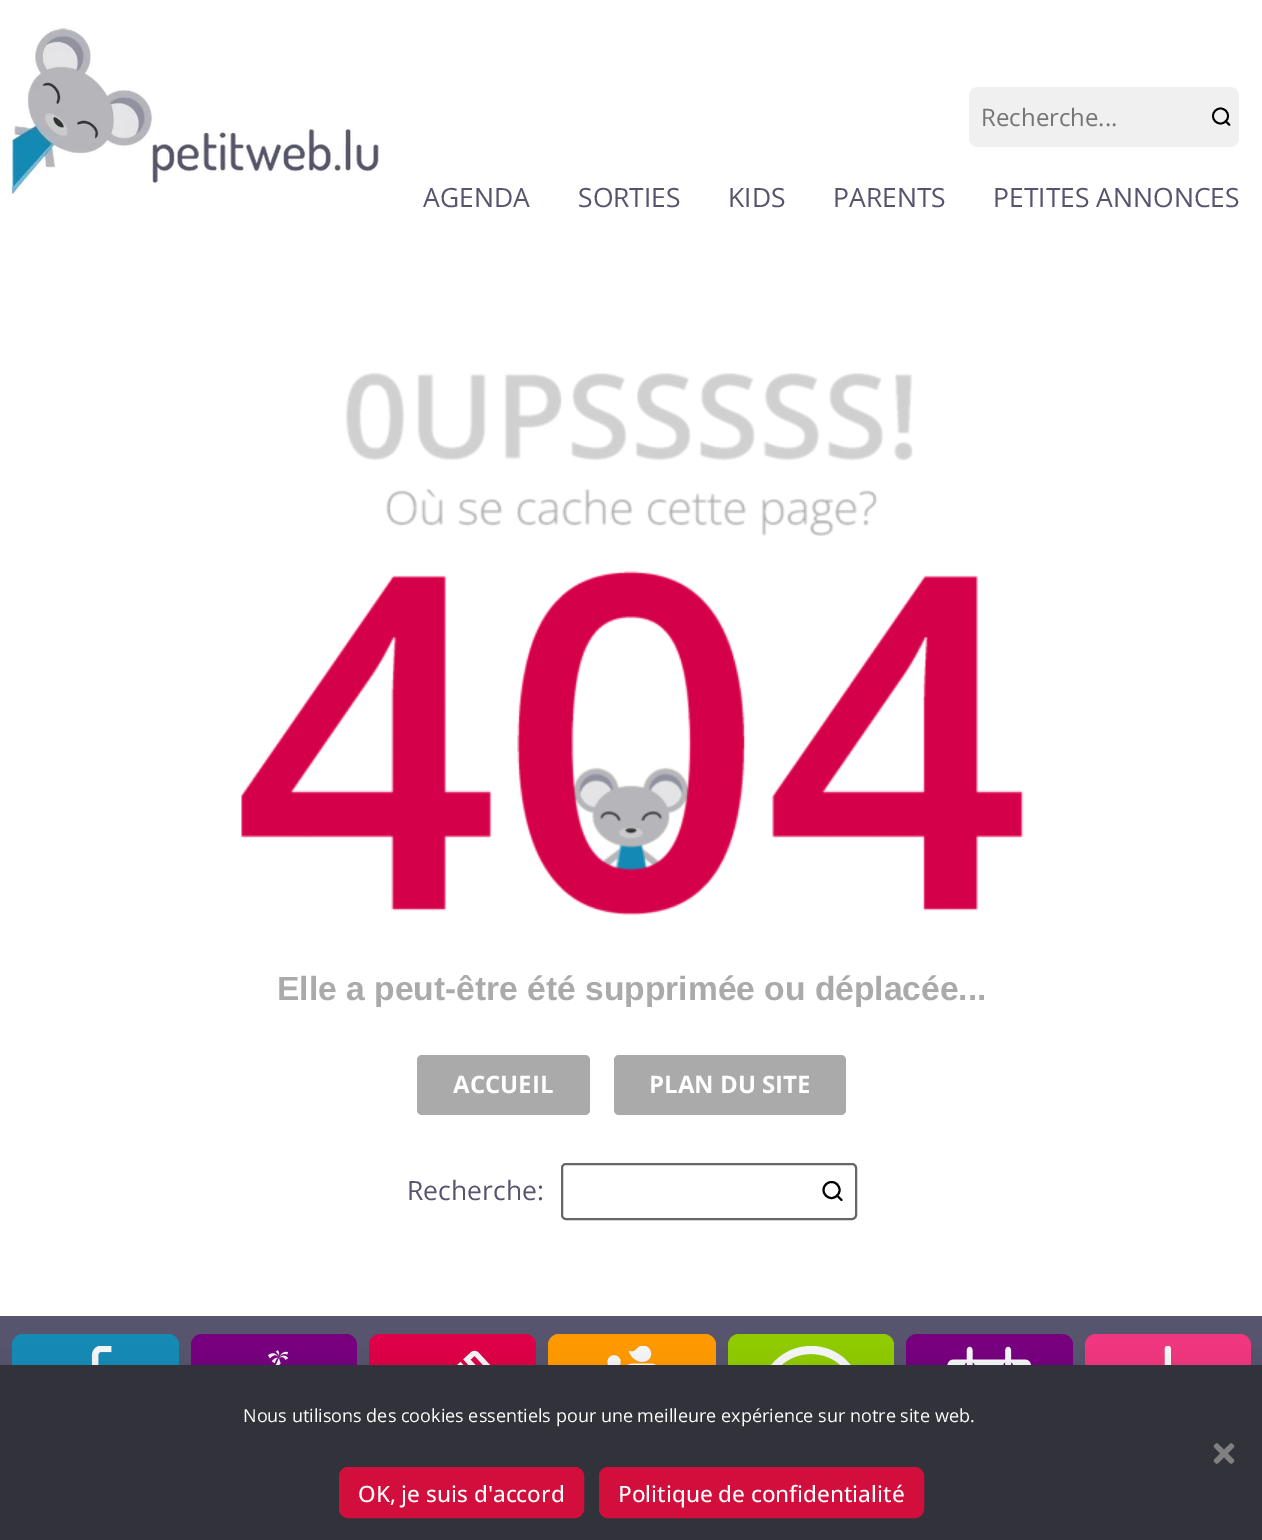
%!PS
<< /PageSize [1262 1540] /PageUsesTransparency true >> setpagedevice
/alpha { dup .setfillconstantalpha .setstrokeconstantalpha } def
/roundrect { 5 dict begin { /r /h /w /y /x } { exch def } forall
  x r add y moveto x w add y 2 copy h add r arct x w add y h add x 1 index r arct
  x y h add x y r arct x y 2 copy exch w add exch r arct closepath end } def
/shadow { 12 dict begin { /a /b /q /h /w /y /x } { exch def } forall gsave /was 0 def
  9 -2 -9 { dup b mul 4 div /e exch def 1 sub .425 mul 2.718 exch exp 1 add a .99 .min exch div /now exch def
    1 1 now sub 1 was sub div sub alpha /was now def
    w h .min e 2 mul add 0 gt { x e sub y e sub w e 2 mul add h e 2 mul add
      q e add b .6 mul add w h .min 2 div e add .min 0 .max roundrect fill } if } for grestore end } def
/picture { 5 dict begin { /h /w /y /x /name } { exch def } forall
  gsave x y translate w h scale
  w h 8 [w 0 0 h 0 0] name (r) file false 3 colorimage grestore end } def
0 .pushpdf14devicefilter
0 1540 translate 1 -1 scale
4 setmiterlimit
1 setgray
0 0 1262 1540 rectfill
(img1.rgb) 12 27 367 167 picture
0.941 0.941 0.945 setrgbcolor
969 87 270 60 9 roundrect fill
/OpenSans-Regular [24 0 0 -24 0 0] selectfont
0.459 setgray
981 126 moveto (Recherche...) show
0 setgray
1.8 setlinewidth
newpath 1220.5 116 7.5 0 360 arc closepath stroke
1 setlinecap
1 setlinejoin
newpath 1229.5 125 moveto 1225.5 121 lineto stroke
/OpenSans-Regular [26.5 0 0 -26.5 0 0] selectfont
0.341 0.333 0.431 setrgbcolor
423 207 moveto (AGENDA) show
578 207 moveto (SORTIES) show
728 207 moveto (KIDS) show
833 207 moveto (PARENTS) show
993 207 moveto (PETITES ANNONCES) show
(img2.rgb) 241 372 783 544 picture
/LiberationSans-Bold [33.6 0 0 -33.6 0 0] selectfont
0.667 setgray
277 1000 moveto (Elle a peut-être été supprimée ou déplacée...) show
417 1055 173 60 5 roundrect fill
/OpenSans-Bold [24 0 0 -24 0 0] selectfont
1 setgray
453 1093 moveto (ACCUEIL) show
0.667 setgray
614 1055 232 60 5 roundrect fill
1 setgray
649 1093 moveto (PLAN DU SITE) show
/OpenSans-Regular [26.5 0 0 -26.5 0 0] selectfont
0.341 0.333 0.431 setrgbcolor
407 1200 moveto (Recherche:) show
0.4 setgray
2 setlinewidth
0 setlinecap
0 setlinejoin
562 1164 294 55 4 roundrect stroke
0 setgray
newpath 831.5 1190 8 0 360 arc closepath stroke
1 setlinecap
1 setlinejoin
newpath 841.5 1200 moveto 837 1195.5 lineto stroke
0.341 0.333 0.431 setrgbcolor
0 1316 1262 49 rectfill
0.082 0.541 0.71 setrgbcolor
12 1334 167 166 11 roundrect fill
(img3.rgb) 91 1346 21 19 picture
0.467 0 0.494 setrgbcolor
191 1334 166 166 11 roundrect fill
(img4.rgb) 268 1350 21 15 picture
0.871 0 0.282 setrgbcolor
369 1334 167 166 11 roundrect fill
(img5.rgb) 457 1350 33 15 picture
1 0.6 0 setrgbcolor
548 1334 168 166 11 roundrect fill
(img6.rgb) 607 1346 49 19 picture
0.561 0.796 0 setrgbcolor
728 1334 166 166 11 roundrect fill
0.961 0.965 0.969 setrgbcolor
newpath 811 1445 moveto 783 1445 760 1423 760 1396 curveto 760 1369 783 1346 811 1346 curveto 839 1346 861 1368 861 1396 curveto 861 1423 839 1445 811 1445 curveto closepath 811 1354 moveto 787 1354 768 1372 768 1396 curveto 768 1419 787 1438 811 1438 curveto 835 1438 854 1419 854 1396 curveto 854 1372 835 1354 811 1354 curveto closepath 802 1387 moveto 784 1422 lineto 820 1405 lineto 838 1369 lineto closepath 811 1400 moveto 805 1400 805 1392 811 1392 curveto 817 1392 817 1400 811 1400 curveto closepath fill
0.467 0 0.494 setrgbcolor
906 1334 167 166 11 roundrect fill
(img7.rgb) 947 1346 84 19 picture
0.937 0.212 0.494 setrgbcolor
1085 1334 166 166 11 roundrect fill
(img8.rgb) 1164 1346 7 19 picture
0 setgray
0 1380 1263 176 0 15 0.19 shadow
0.196 0.196 0.227 setrgbcolor
0 1365 1262 175 rectfill
/OpenSans-Regular [18 0 0 -18 0 0] selectfont
1 setgray
243 1422 moveto (Nous utilisons des cookies essentiels pour une meilleure expérience sur notre site web.) show
(img9.rgb) 1213 1443 22 21 picture
0.82 0.055 0.235 setrgbcolor
340 1468 243 49 8 roundrect gsave fill grestore
0 setlinecap
0 setlinejoin
stroke
/OpenSans-Medium [22.5 0 0 -22.5 0 0] selectfont
1 setgray
358 1502 moveto (OK, je suis d'accord) show
0.82 0.055 0.235 setrgbcolor
600 1468 323 49 8 roundrect gsave fill grestore
stroke
1 setgray
618 1502 moveto (Politique de confidentialité) show
.poppdf14devicefilter showpage
